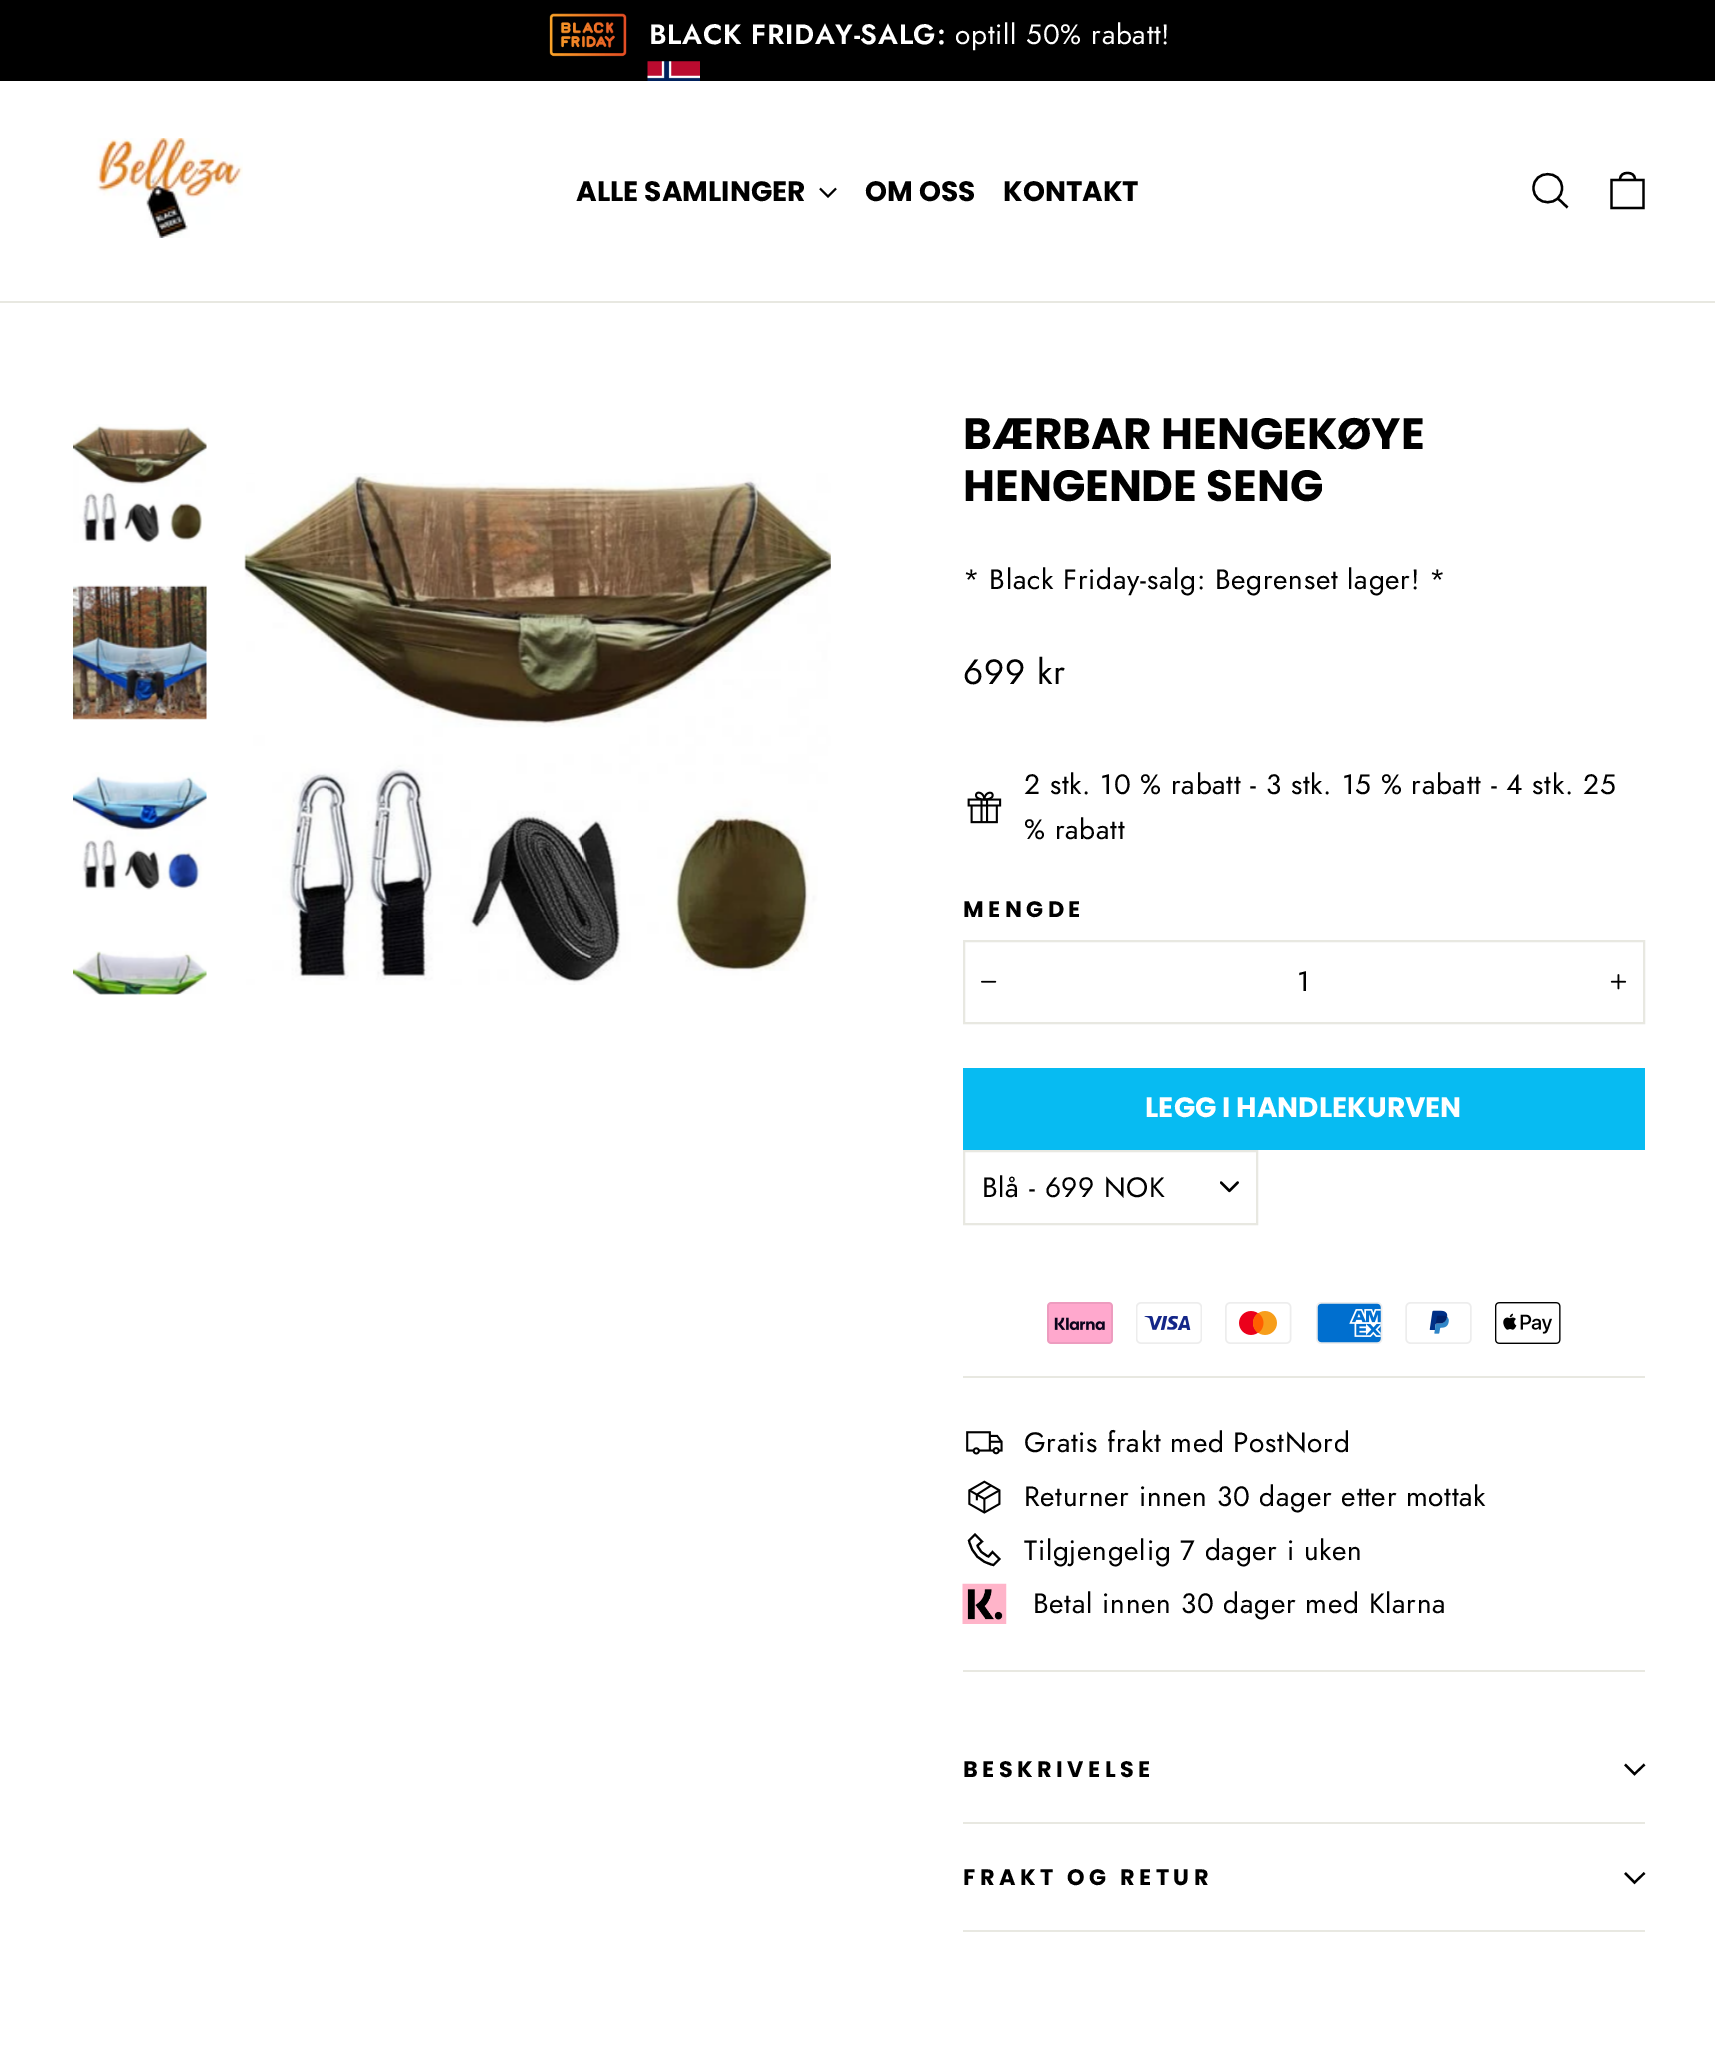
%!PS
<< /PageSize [1715 2054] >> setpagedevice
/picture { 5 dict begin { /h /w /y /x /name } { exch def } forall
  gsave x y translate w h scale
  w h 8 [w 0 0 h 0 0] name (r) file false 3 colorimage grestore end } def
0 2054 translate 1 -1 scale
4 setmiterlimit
1 setgray
0 0 1715 2054 rectfill
0 setgray
0 0 1715 81 rectfill
(img1.rgb) 549 13 78 44 picture
/Jost-SemiBold [28 0 0 -28 0 0] selectfont
1 setgray
649 44 moveto 0.7 0 (BLACK FRIDAY-SALG:) ashow
/Jost-Regular [28 0 0 -28 0 0] selectfont
955 44 moveto 0.7 0 (optill 50% rabatt!) ashow
(img2.rgb) 647 61 53 20 picture
0.91 0.91 0.882 setrgbcolor
0 301 1715 2 rectfill
(img3.rgb) 96 138 147 100 picture
/Poppins-Bold [28 0 0 -28 0 0] selectfont
0 setgray
576 201 moveto (ALLE SAMLINGER) show
1.9 setlinewidth
newpath 820 188.5 moveto 828 196.5 lineto 836 188.5 lineto stroke
865 201 moveto (OM OSS) show
1003 201 moveto (KONTAKT) show
2.3 setlinewidth
newpath 1562 188 moveto 1562 207 1533.5 207 1533.5 188 curveto 1533.5 169.5 1562 169.5 1562 188 curveto closepath 1567.5 207.5 moveto 1558 198.5 lineto stroke
newpath 1611.5 180 moveto 1643.5 180 lineto 1643.5 208 lineto 1611.5 208 lineto closepath 1620 180 moveto 1620 174.5 1623.5 173 1627.5 173 curveto 1631.5 173 1635 174.5 1635 180 curveto stroke
(img4.rgb) 73 424 134 119 picture
(img5.rgb) 73 585 134 135 picture
(img6.rgb) 73 772 134 118 picture
(img7.rgb) 73 951 134 44 picture
(img8.rgb) 244 473 587 512 picture
/Poppins-Bold [43.75 0 0 -43.75 0 0] selectfont
963 449 moveto (BÆRBAR HENGEKØYE) show
963 501 moveto (HENGENDE SENG) show
/Jost-Regular [28 0 0 -28 0 0] selectfont
963 589 moveto 0.7 0 (* Black Friday-salg: Begrenset lager! *) ashow
/Jost-Regular [35 0 0 -35 0 0] selectfont
963 684 moveto 0.7 0 (699 kr) ashow
(img9.rgb) 967 791 35 33 picture
/Jost-Regular [28 0 0 -28 0 0] selectfont
1024 794 moveto 0.7 0 (2 stk. 10 % rabatt - 3 stk. 15 % rabatt - 4 stk. 25) ashow
1024 839 moveto 0.7 0 (% rabatt) ashow
/Poppins-Bold [22.4 0 0 -22.4 0 0] selectfont
963 917 moveto 4.5 0 (MENGDE) ashow
0.91 0.91 0.882 setrgbcolor
2 setlinewidth
964 941 680 82 rectstroke
(img10.rgb) 981 980 16 3 picture
/Jost-Regular [28 0 0 -28 0 0] selectfont
0 setgray
1297 991 moveto 0.7 0 (1) ashow
(img11.rgb) 1610 974 17 16 picture
0.027 0.733 0.949 setrgbcolor
963 1068 682 82 rectfill
/Poppins-Bold [28 0 0 -28 0 0] selectfont
1 setgray
1145 1117 moveto (LEGG I HANDLEKURVEN) show
(img12.rgb) 1220 1181 19 12 picture
0.91 0.91 0.882 setrgbcolor
964 1151 293 73 rectstroke
/Jost-Regular [28 0 0 -28 0 0] selectfont
0 setgray
982 1197 moveto 0.7 0 (Blå - 699 NOK) ashow
(img13.rgb) 1047 1302 66 42 picture
(img14.rgb) 1136 1302 66 42 picture
(img15.rgb) 1225 1302 67 42 picture
(img16.rgb) 1316 1302 67 42 picture
(img17.rgb) 1405 1302 67 42 picture
(img18.rgb) 1495 1302 66 42 picture
0.91 0.91 0.882 setrgbcolor
963 1376 682 2 rectfill
(img19.rgb) 966 1431 37 24 picture
0 setgray
1024 1452 moveto 0.7 0 (Gratis frakt med PostNord) ashow
(img20.rgb) 968 1480 33 34 picture
1024 1506 moveto 0.7 0 (Returner innen 30 dager etter mottak) ashow
2.1 setlinewidth
newpath 975 1534.5 moveto 982 1541.5 lineto 977.5 1545.5 lineto 979 1550.5 982.5 1554 988.5 1556.5 curveto 992.5 1552 lineto 999.5 1559 lineto 993.5 1565 lineto 980 1562 972 1554 969 1540.5 curveto closepath stroke
1024 1560 moveto 0.7 0 (Tilgjengelig 7 dager i uken) ashow
(img21.rgb) 962 1583 45 41 picture
1033 1613 moveto 0.7 0 (Betal innen 30 dager med Klarna) ashow
0.91 0.91 0.882 setrgbcolor
963 1670 682 2 rectfill
963 1822 682 2 rectfill
/Poppins-Bold [22.4 0 0 -22.4 0 0] selectfont
0 setgray
963 1777 moveto 4.5 0 (BESKRIVELSE) ashow
2.2 setlinewidth
newpath 1625 1764.5 moveto 1634.5 1774 lineto 1644.5 1764.5 lineto stroke
0.91 0.91 0.882 setrgbcolor
963 1930 682 2 rectfill
0 setgray
963 1885 moveto 4.5 0 (FRAKT OG RETUR) ashow
newpath 1625 1873 moveto 1634.5 1882.5 lineto 1644.5 1873 lineto stroke
showpage
